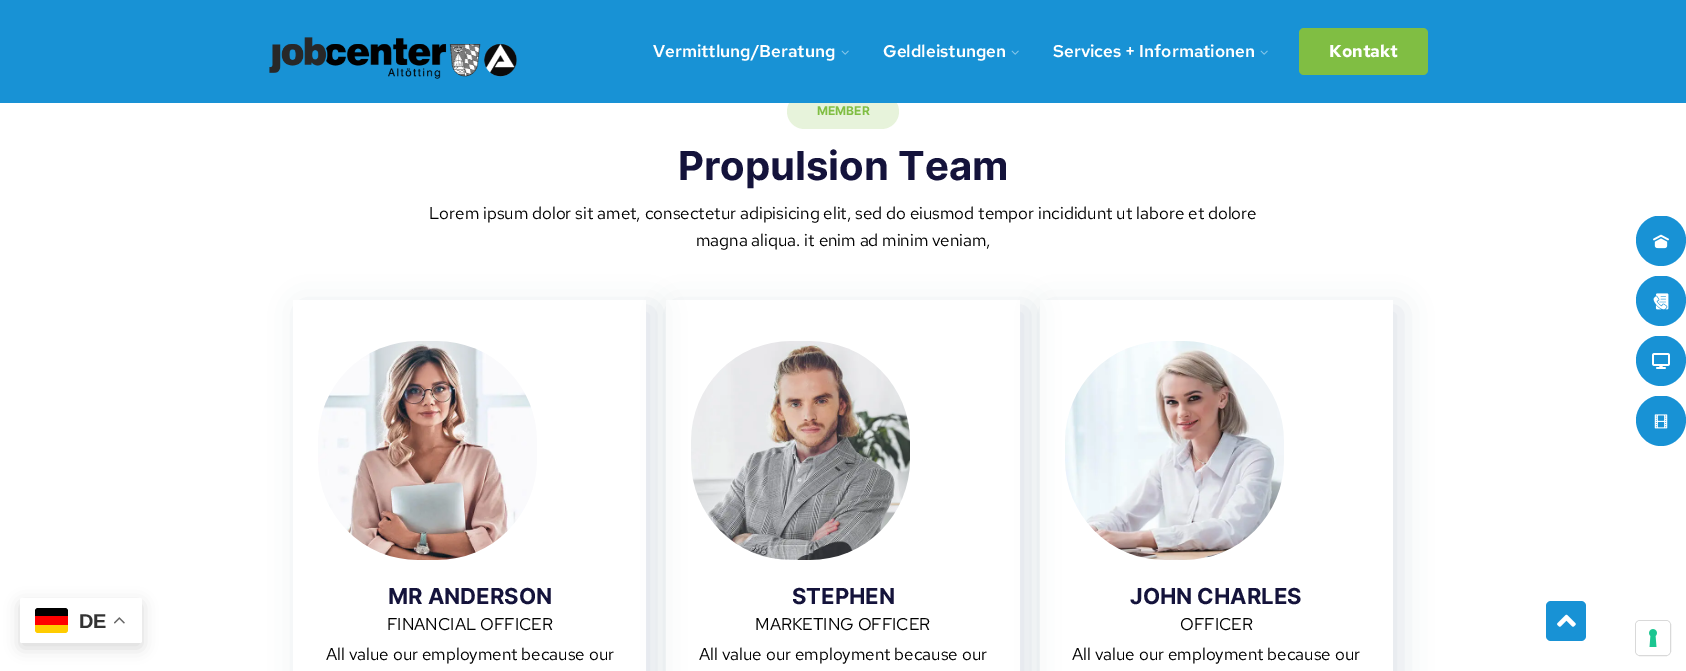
%!PS
<< /PageSize [1686 671] /PageUsesTransparency true >> setpagedevice
/alpha { dup .setfillconstantalpha .setstrokeconstantalpha } def
/roundrect { 5 dict begin { /r /h /w /y /x } { exch def } forall
  x r add y moveto x w add y 2 copy h add r arct x w add y h add x 1 index r arct
  x y h add x y r arct x y 2 copy exch w add exch r arct closepath end } def
/shadow { 12 dict begin { /a /b /q /h /w /y /x } { exch def } forall gsave /was 0 def
  9 -2 -9 { dup b mul 4 div /e exch def 1 sub .425 mul 2.718 exch exp 1 add a .99 .min exch div /now exch def
    1 1 now sub 1 was sub div sub alpha /was now def
    w h .min e 2 mul add 0 gt { x e sub y e sub w e 2 mul add h e 2 mul add
      q e add b .6 mul add w h .min 2 div e add .min 0 .max roundrect fill } if } for grestore end } def
/picture { 5 dict begin { /h /w /y /x /name } { exch def } forall
  gsave x y translate w h scale
  w h 8 [w 0 0 h 0 0] name (r) file false 3 colorimage grestore end } def
0 .pushpdf14devicefilter
0 671 translate 1 -1 scale
4 setmiterlimit
1 setgray
0 0 1686 671 rectfill
0.906 0.953 0.859 setrgbcolor
787 94 112 35 17.5 roundrect fill
0.094 0.573 0.835 setrgbcolor
0 0 1686 103 rectfill
(img1.rgb) 269 37 248 42 picture
/RedHatText-SemiBold [17 0 0 -17 0 0] selectfont
1 setgray
653 57 moveto (Vermittlung/Beratung) show
(img2.rgb) 841 50 8 5 picture
883 57 moveto (Geldleistungen) show
(img2.rgb) 1011 50 8 5 picture
1053 57 moveto (Services + Informationen) show
(img2.rgb) 1260 50 8 5 picture
0.502 0.745 0.263 setrgbcolor
1299 28 129 47 5 roundrect fill
/RedHatText-Bold [17 0 0 -17 0 0] selectfont
1 setgray
1329 57 moveto (Kontakt) show
/Inter-Bold [12 0 0 -12 0 0] selectfont
0.502 0.745 0.263 setrgbcolor
817 115 moveto (MEMBER) show
/Inter-Bold [40 0 0 -40 0 0] selectfont
0.078 0.075 0.231 setrgbcolor
678 180 moveto (Propulsion Team) show
/RedHatText-Regular [17 0 0 -17 0 0] selectfont
0 setgray
429 219 moveto (Lorem ipsum dolor sit amet, consectetur adipisicing elit, sed do eiusmod tempor incididunt ut labore et dolore) show
696 246 moveto (magna aliqua. it enim ad minim veniam,) show
gsave
newpath 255 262 moveto 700 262 lineto 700 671 lineto 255 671 lineto closepath 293 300 moveto 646 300 lineto 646 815 lineto 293 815 lineto closepath eoclip newpath
0.165 0.263 0.443 setrgbcolor
301 308 353 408 0 15 0.15 shadow
grestore
(img3.rgb) 318 341 219 219 picture
/Inter-Bold [22 0 0 -22 0 0] selectfont
0.078 0.075 0.231 setrgbcolor
388 604 moveto (MR ANDERSON) show
/RedHatText-Regular [17 0 0 -17 0 0] selectfont
0 setgray
387 630 moveto (FINANCIAL OFFICER) show
326 660 moveto (All value our employment because our) show
gsave
newpath 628 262 moveto 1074 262 lineto 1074 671 lineto 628 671 lineto closepath 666 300 moveto 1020 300 lineto 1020 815 lineto 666 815 lineto closepath eoclip newpath
0.165 0.263 0.443 setrgbcolor
674 308 354 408 0 15 0.15 shadow
grestore
(img4.rgb) 691 341 219 219 picture
/Inter-Bold [22 0 0 -22 0 0] selectfont
0.078 0.075 0.231 setrgbcolor
792 604 moveto (STEPHEN) show
/RedHatText-Regular [17 0 0 -17 0 0] selectfont
0 setgray
755 630 moveto (MARKETING OFFICER) show
699 660 moveto (All value our employment because our) show
gsave
newpath 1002 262 moveto 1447 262 lineto 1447 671 lineto 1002 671 lineto closepath 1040 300 moveto 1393 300 lineto 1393 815 lineto 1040 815 lineto closepath eoclip newpath
0.165 0.263 0.443 setrgbcolor
1048 308 353 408 0 15 0.15 shadow
grestore
(img5.rgb) 1065 341 219 219 picture
/Inter-Bold [22 0 0 -22 0 0] selectfont
0.078 0.075 0.231 setrgbcolor
1130 604 moveto (JOHN CHARLES) show
/RedHatText-Regular [17 0 0 -17 0 0] selectfont
0 setgray
1180 630 moveto (OFFICER) show
1072 660 moveto (All value our employment because our) show
0.094 0.573 0.835 setrgbcolor
newpath 1666 216 moveto 1677 218 1686 228 1686 240 curveto 1686 254 1675 266 1661 266 curveto 1647 266 1636 254 1636 240 curveto 1636 228 1645 218 1656 216 curveto closepath fill
(img6.rgb) 1653 234 16 15 picture
newpath 1666 276 moveto 1677 278 1686 288 1686 300 curveto 1686 314 1675 326 1661 326 curveto 1647 326 1636 314 1636 300 curveto 1636 288 1645 278 1656 276 curveto closepath fill
(img7.rgb) 1653 293 16 17 picture
newpath 1666 336 moveto 1677 338 1686 348 1686 360 curveto 1686 374 1675 386 1661 386 curveto 1647 386 1636 374 1636 360 curveto 1636 348 1645 338 1656 336 curveto closepath fill
(img8.rgb) 1652 353 18 16 picture
newpath 1666 396 moveto 1677 398 1686 408 1686 420 curveto 1686 434 1675 446 1661 446 curveto 1647 446 1636 434 1636 420 curveto 1636 408 1645 398 1656 396 curveto closepath fill
(img9.rgb) 1654 414 14 15 picture
0 setgray
20 603 122 45 2 7.5 0.15 shadow
1 setgray
20 598 122 45 2 roundrect fill
1 0.8 0 setrgbcolor
newpath 35 625 moveto 68 625 lineto 68 630 lineto 68 631.5 66.5 633 65 633 curveto 38 633 lineto 36.5 633 35 631.5 35 630 curveto closepath fill
0 setgray
newpath 38 608 moveto 65 608 lineto 66.5 608 68 609.5 68 611 curveto 68 616 lineto 35 616 lineto 35 611 lineto 35 609.5 36.5 608 38 608 curveto closepath fill
1 0 0 setrgbcolor
35 616 33 9 rectfill
/LiberationSans-Bold [20 0 0 -20 0 0] selectfont
0.2 setgray
79 628 moveto (DE) show
(img10.rgb) 114 617 11 7 picture
0.094 0.573 0.835 setrgbcolor
1546 601 40 40 5 roundrect fill
(img11.rgb) 1557 614 19 13 picture
0.851 setgray
1635.5 620.5 35 35 4.5 roundrect stroke
1 setgray
1636 621 34 34 4 roundrect fill
(img12.rgb) 1649 629 8 18 picture
.poppdf14devicefilter showpage
